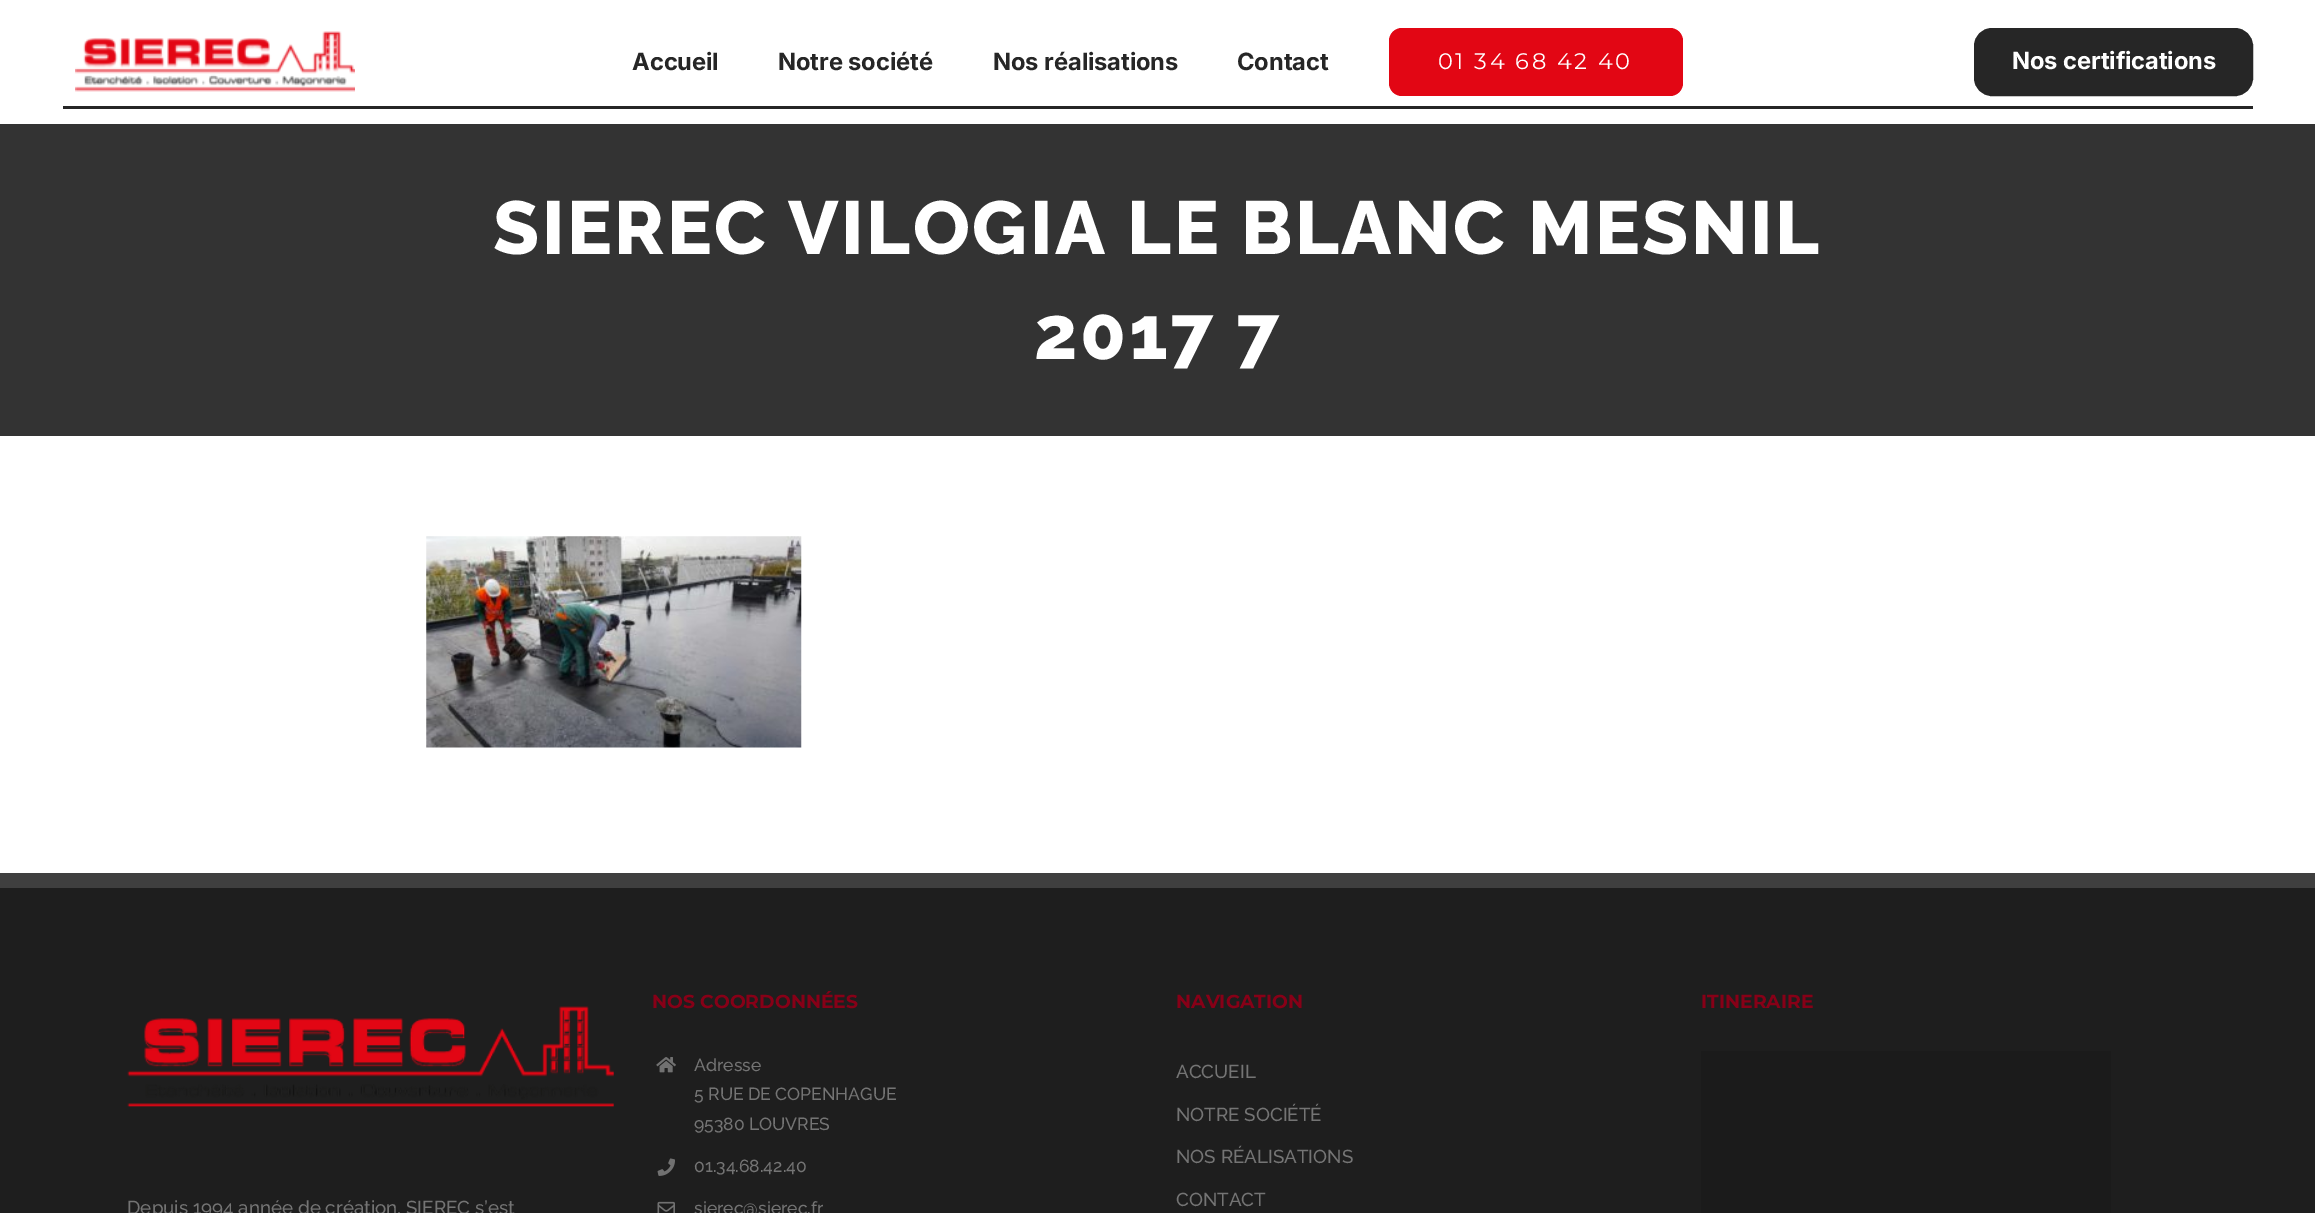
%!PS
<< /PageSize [2315 1213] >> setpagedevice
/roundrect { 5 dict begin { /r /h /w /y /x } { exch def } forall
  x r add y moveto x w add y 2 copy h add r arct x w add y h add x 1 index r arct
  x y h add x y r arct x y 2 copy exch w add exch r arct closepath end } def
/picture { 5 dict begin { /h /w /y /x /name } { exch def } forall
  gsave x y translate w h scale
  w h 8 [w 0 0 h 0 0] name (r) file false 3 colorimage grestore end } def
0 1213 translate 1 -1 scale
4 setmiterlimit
1 setgray
0 0 2315 1213 rectfill
(img1.rgb) 75 31 280 61 picture
/Inter-Bold [23.75 0 0 -23.75 0 0] selectfont
0.149 setgray
632 70 moveto -0.1 0 (Accueil) ashow
778 70 moveto -0.1 0 (Notre société) ashow
993 70 moveto -0.1 0 (Nos réalisations) ashow
1237 70 moveto -0.1 0 (Contact) ashow
0.886 0.024 0.078 setrgbcolor
1389 28 294 68 13 roundrect fill
/Montserrat-Regular [22.5 0 0 -22.5 0 0] selectfont
1 setgray
1438 69 moveto 2.5 0 (01 34 68 42 40) ashow
0.149 setgray
1975.5 29.5 276 65 16.5 roundrect gsave fill grestore
3 setlinewidth
stroke
/Inter-Bold [23.75 0 0 -23.75 0 0] selectfont
1 setgray
2012 69 moveto -0.1 0 (Nos certifications) ashow
0.149 setgray
63 106 2190 3 rectfill
0.2 setgray
0 124 2315 312 rectfill
/Raleway-ExtraBold [75 0 0 -75 0 0] selectfont
1 setgray
493 254 moveto 2.5 0 (SIEREC VILOGIA LE BLANC MESNIL) ashow
1034 359 moveto 2.5 0 (2017 7) ashow
(img2.rgb) 426 536 376 212 picture
0.118 setgray
0 888 2315 325 rectfill
0.247 setgray
0 873 2315 15 rectfill
/Montserrat-Bold [18.75 0 0 -18.75 0 0] selectfont
0.529 0 0.09 setrgbcolor
652 1008 moveto (NOS COORDONNÉES) show
(img3.rgb) 656 1057 20 16 picture
/Raleway-Medium [17.5 0 0 -17.5 0 0] selectfont
0.455 setgray
694 1071 moveto (Adresse) show
694 1100 moveto (5 RUE DE COPENHAGUE) show
694 1130 moveto (95380 LOUVRES) show
(img4.rgb) 657 1158 18 18 picture
694 1172 moveto (01.34.68.42.40) show
(img5.rgb) 657 1201 18 12 picture
694 1214 moveto (sierec@sierec.fr) show
/Montserrat-Bold [18.75 0 0 -18.75 0 0] selectfont
0.529 0 0.09 setrgbcolor
1176 1008 moveto (NAVIGATION) show
/Raleway-Medium [18.75 0 0 -18.75 0 0] selectfont
0.455 setgray
1176 1078 moveto (ACCUEIL) show
1176 1121 moveto (NOTRE SOCIÉTÉ) show
1176 1163 moveto (NOS RÉALISATIONS) show
1176 1206 moveto (CONTACT) show
/Montserrat-Bold [18.75 0 0 -18.75 0 0] selectfont
0.529 0 0.09 setrgbcolor
1701 1008 moveto (ITINERAIRE) show
0.106 setgray
1701 1051 410 162 rectfill
(img6.rgb) 127 1006 487 101 picture
/Raleway-Medium [18.75 0 0 -18.75 0 0] selectfont
0.455 setgray
127 1214 moveto (Depuis 1994 année de création, SIEREC s’est) show
showpage
